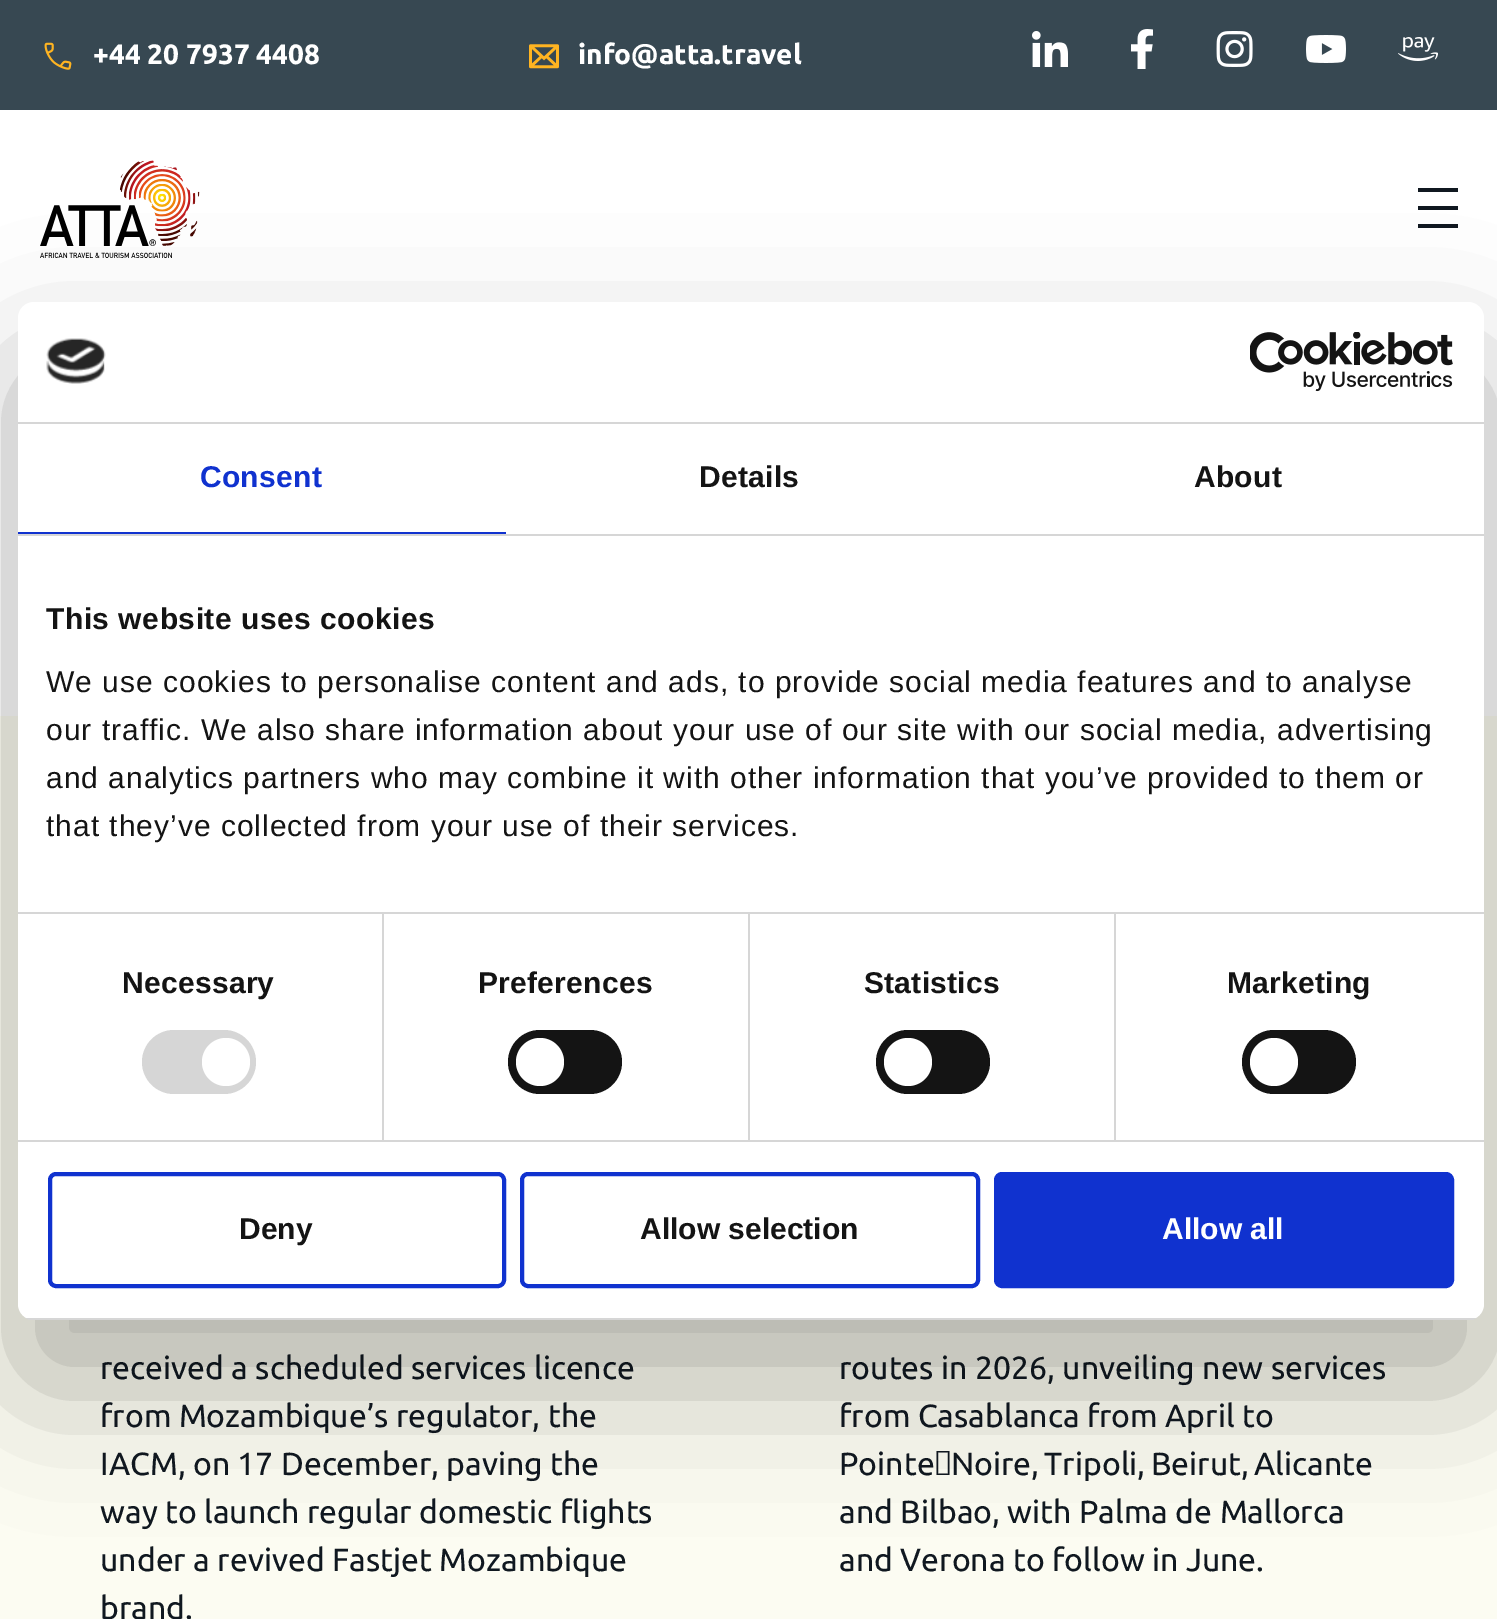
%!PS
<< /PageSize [1497 1619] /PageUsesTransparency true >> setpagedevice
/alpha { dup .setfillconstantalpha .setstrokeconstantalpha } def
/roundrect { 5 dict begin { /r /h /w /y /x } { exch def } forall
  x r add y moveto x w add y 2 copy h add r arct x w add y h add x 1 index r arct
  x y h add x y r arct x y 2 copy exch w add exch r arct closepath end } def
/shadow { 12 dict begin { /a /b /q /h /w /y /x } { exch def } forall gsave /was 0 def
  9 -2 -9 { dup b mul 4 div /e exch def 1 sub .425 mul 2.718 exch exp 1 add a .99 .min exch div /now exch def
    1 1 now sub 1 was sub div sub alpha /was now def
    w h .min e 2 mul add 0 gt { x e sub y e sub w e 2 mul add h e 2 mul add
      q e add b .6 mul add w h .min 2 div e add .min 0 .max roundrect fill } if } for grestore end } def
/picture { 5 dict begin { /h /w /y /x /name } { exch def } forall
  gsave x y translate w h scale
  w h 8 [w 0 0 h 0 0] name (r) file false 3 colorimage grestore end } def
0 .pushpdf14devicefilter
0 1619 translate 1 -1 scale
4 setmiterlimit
1 setgray
0 0 1497 1619 rectfill
0.216 0.282 0.322 setrgbcolor
0 0 1497 110 rectfill
(img1.rgb) 44 42 28 28 picture
/Ubuntu-Bold [28 0 0 -28 0 0] selectfont
1 setgray
93 64 moveto (+44 20 7937 4408) show
(img2.rgb) 529 44 30 25 picture
578 64 moveto (info@atta.travel) show
(img3.rgb) 1032 31 36 36 picture
(img4.rgb) 1131 29 22 40 picture
(img5.rgb) 1216 31 37 36 picture
(img6.rgb) 1306 35 40 28 picture
(img7.rgb) 1398 37 40 24 picture
(img8.rgb) 40 160 160 98 picture
0.063 0.094 0.125 setrgbcolor
1418 206 40 4 rectfill
1418 188 40 4 rectfill
1418 224 40 4 rectfill
0.988 0.988 0.949 setrgbcolor
0 716 1497 903 rectfill
/Ubuntu-Regular [32 0 0 -32 0 0] selectfont
0.063 0.094 0.125 setrgbcolor
100 1379 moveto (received a scheduled services licence) show
100 1427 moveto (from Mozambique’s regulator, the) show
100 1475 moveto (IACM, on 17 December, paving the) show
100 1523 moveto (way to launch regular domestic flights) show
100 1571 moveto (under a revived Fastjet Mozambique) show
100 1619 moveto (brand.) show
839 1379 moveto (routes in 2026, unveiling new services) show
839 1427 moveto (from Casablanca from April to) show
839 1475 moveto -2 0 32 (Pointe‑Noire, Tripoli, Beirut, Alicante) widthshow
839 1523 moveto (and Bilbao, with Palma de Mallorca) show
839 1571 moveto (and Verona to follow in June.) show
0 setgray
18 366 1466 1018 16 68 0.3 shadow
1 setgray
18 302 1466 1018 16 roundrect fill
0.839 setgray
18 422 1466 2 rectfill
(img9.rgb) 46 338 60 46 picture
(img10.rgb) 1250 332 203 60 picture
18 534 1466 2 rectfill
0.063 0.196 0.812 setrgbcolor
18 532 488 2 rectfill
/LiberationSans-Bold [30 0 0 -30 0 0] selectfont
200 487 moveto 0.25 0 (Consent) ashow
0.078 setgray
699 487 moveto 0.25 0 (Details) ashow
1194 487 moveto 0.25 0 (About) ashow
0.839 setgray
18 912 1466 2 rectfill
0.078 setgray
46 629 moveto 0.5 0 (This website uses cookies) ashow
/LiberationSans-Regular [30 0 0 -30 0 0] selectfont
46 692 moveto 1 0 (We use cookies to personalise content and ads, to provide social media features and to analyse) ashow
46 740 moveto 1 0 (our traffic. We also share information about your use of our site with our social media, advertising) ashow
46 788 moveto 1 0 (and analytics partners who may combine it with other information that you’ve provided to them or) ashow
46 836 moveto 1 0 (that they’ve collected from your use of their services.) ashow
0.839 setgray
18 1140 1466 2 rectfill
382 914 2 226 rectfill
/LiberationSans-Bold [30 0 0 -30 0 0] selectfont
0.078 setgray
122 993 moveto 0.25 0 (Necessary) ashow
0.839 setgray
142 1030 114 64 32 roundrect fill
1 setgray
newpath 226 1062 24 0 360 arc closepath fill
0.839 setgray
748 914 2 226 rectfill
0.078 setgray
478 993 moveto 0.25 0 (Preferences) ashow
508 1030 114 64 32 roundrect fill
1 setgray
newpath 540 1062 24 0 360 arc closepath fill
0.839 setgray
1114 914 2 226 rectfill
0.078 setgray
864 993 moveto 0.25 0 (Statistics) ashow
876 1030 114 64 32 roundrect fill
1 setgray
newpath 908 1062 24 0 360 arc closepath fill
0.078 setgray
1227 993 moveto 0.25 0 (Marketing) ashow
1242 1030 114 64 32 roundrect fill
1 setgray
newpath 1274 1062 24 0 360 arc closepath fill
gsave
18 302 1466 1018 16 roundrect clip newpath
0.839 setgray
18 1318 1466 2 rectfill
grestore
0.063 0.196 0.812 setrgbcolor
4 setlinewidth
50 1174 454 112 6 roundrect stroke
0.078 setgray
239 1239 moveto (Deny) show
0.063 0.196 0.812 setrgbcolor
522 1174 456 112 6 roundrect stroke
0.078 setgray
640 1239 moveto (Allow selection) show
0.063 0.196 0.812 setrgbcolor
996 1174 456 112 6 roundrect gsave fill grestore
stroke
1 setgray
1162 1239 moveto (Allow all) show
.poppdf14devicefilter showpage
